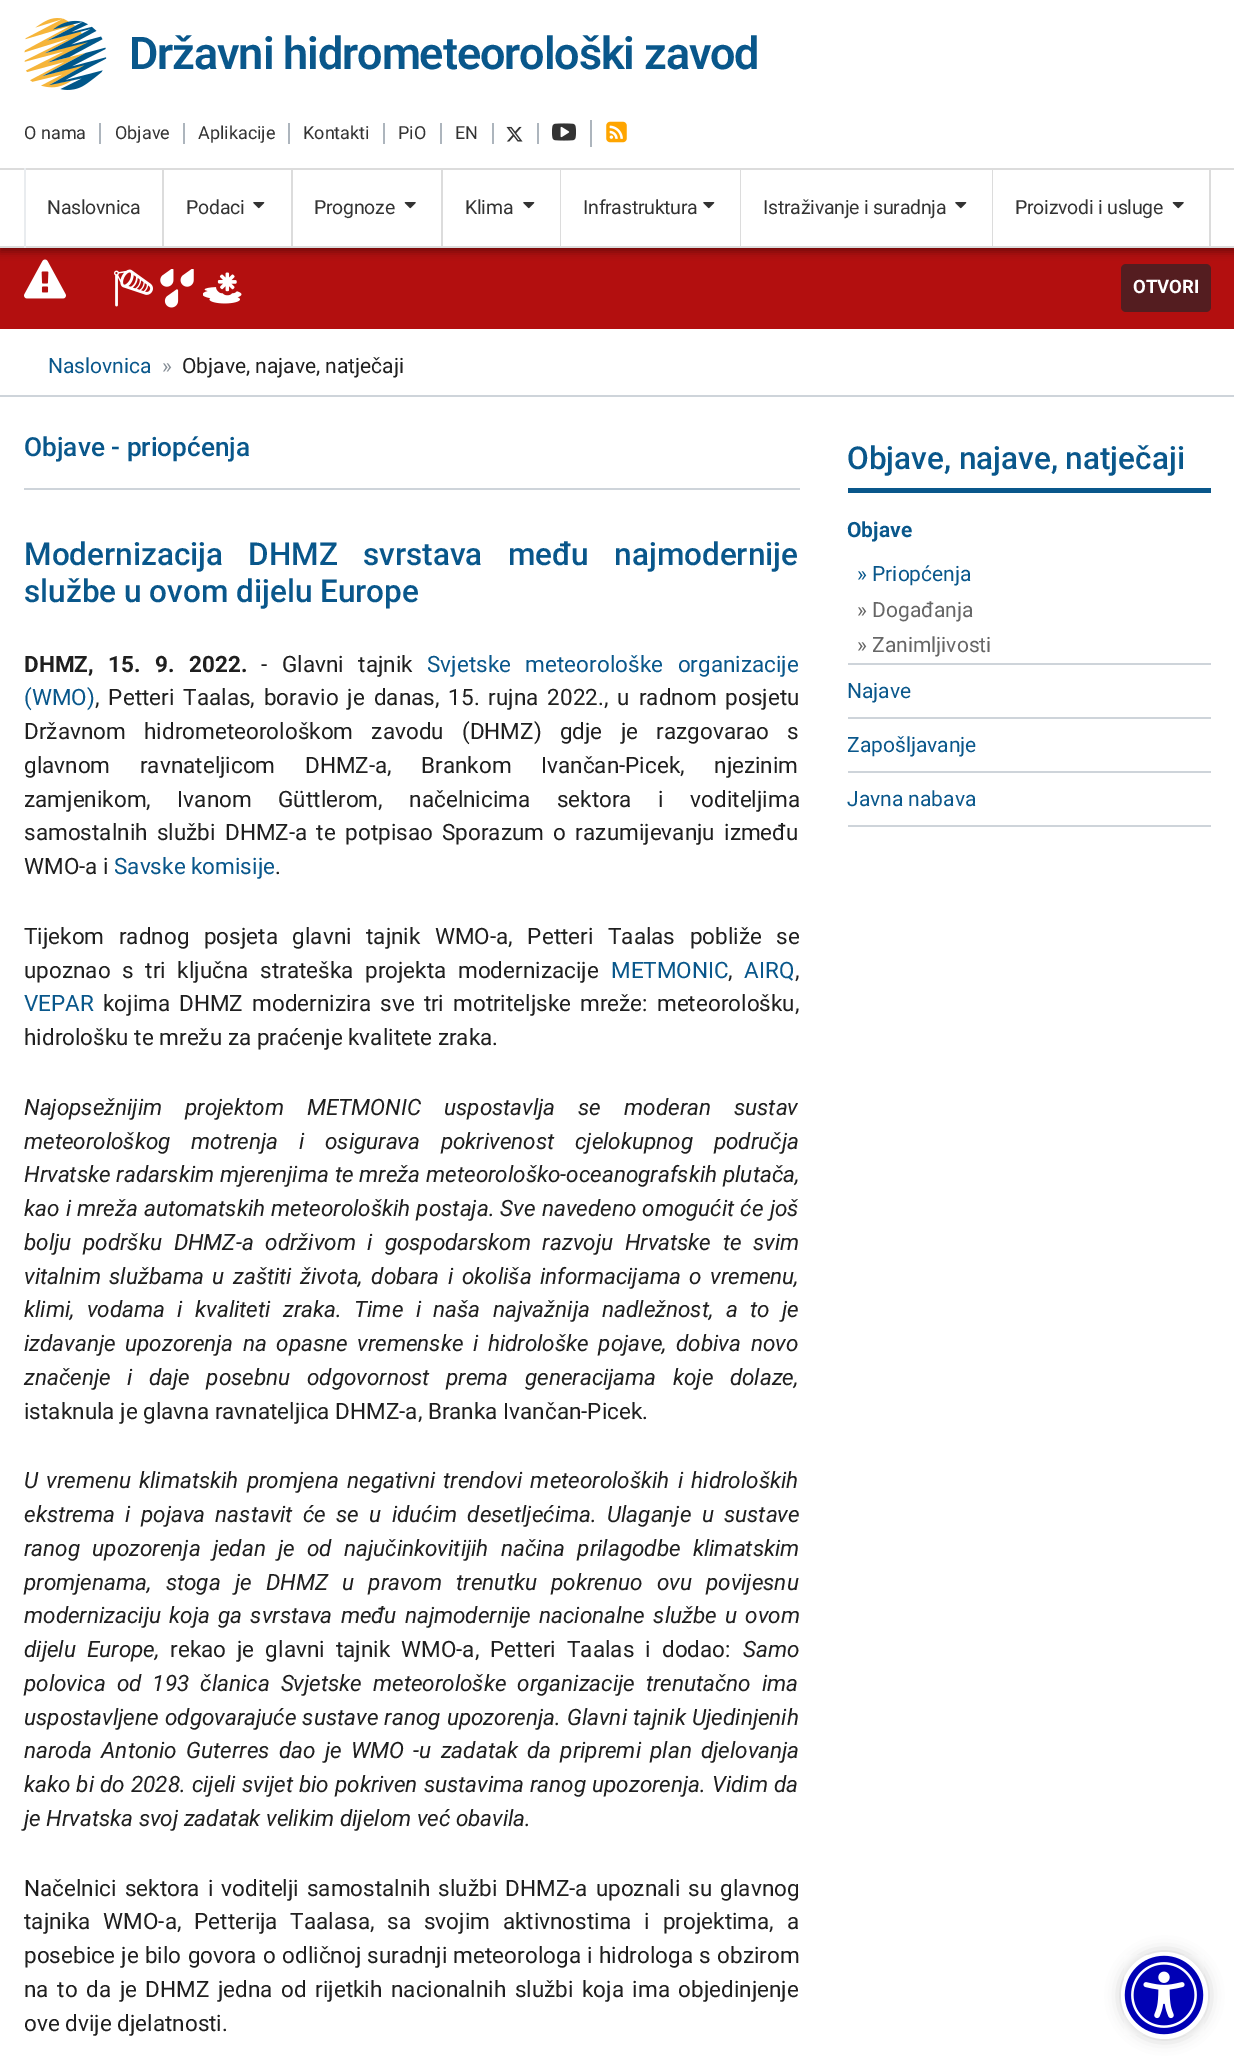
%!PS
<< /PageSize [1234 2065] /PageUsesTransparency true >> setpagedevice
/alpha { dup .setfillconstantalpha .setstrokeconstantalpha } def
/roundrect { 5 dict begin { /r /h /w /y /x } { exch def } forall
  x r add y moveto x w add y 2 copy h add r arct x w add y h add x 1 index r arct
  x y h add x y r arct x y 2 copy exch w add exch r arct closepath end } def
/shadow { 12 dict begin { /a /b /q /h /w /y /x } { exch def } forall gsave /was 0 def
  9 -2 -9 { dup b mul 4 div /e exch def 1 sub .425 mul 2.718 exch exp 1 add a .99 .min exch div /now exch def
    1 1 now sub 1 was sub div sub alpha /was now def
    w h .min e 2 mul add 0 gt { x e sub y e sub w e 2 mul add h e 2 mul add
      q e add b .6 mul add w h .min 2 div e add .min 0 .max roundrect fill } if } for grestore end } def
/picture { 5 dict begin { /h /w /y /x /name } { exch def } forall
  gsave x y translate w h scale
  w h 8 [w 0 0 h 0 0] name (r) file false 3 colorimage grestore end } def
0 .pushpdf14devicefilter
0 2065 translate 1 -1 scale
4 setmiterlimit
1 setgray
0 0 1234 2065 rectfill
0.702 0.059 0.059 setrgbcolor
0 248 1234 81 rectfill
(img7.rgb) 24 259 42 40 picture
0.329 0.114 0.125 setrgbcolor
1121 264 90 48 5 roundrect fill
0 setgray
0 5 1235 247 0 4 0.35 shadow
1 setgray
0 0 1234 246 rectfill
(img1.rgb) 24 18 83 72 picture
/Roboto-SemiBold [45 0 0 -45 0 0] selectfont
0.035 0.341 0.545 setrgbcolor
129 69 moveto -1.1 0 (Državni hidrometeorološki zavod) ashow
0.678 0.71 0.741 setrgbcolor
99 123 2 21 rectfill
/Roboto-Regular [18 0 0 -18 0 0] selectfont
0.2 setgray
24 139 moveto (O nama) show
0.678 0.71 0.741 setrgbcolor
183 123 2 21 rectfill
0.2 setgray
115 139 moveto (Objave) show
0.678 0.71 0.741 setrgbcolor
288 123 2 21 rectfill
0.2 setgray
198 139 moveto (Aplikacije) show
0.678 0.71 0.741 setrgbcolor
383 123 2 21 rectfill
0.2 setgray
303 139 moveto (Kontakti) show
0.678 0.71 0.741 setrgbcolor
440 123 2 21 rectfill
0.2 setgray
398 139 moveto (PiO) show
0.678 0.71 0.741 setrgbcolor
492 123 2 21 rectfill
0.2 setgray
455 139 moveto (EN) show
0.678 0.71 0.741 setrgbcolor
537 123 2 21 rectfill
(img2.rgb) 506 126 17 16 picture
590 120 2 27 rectfill
(img3.rgb) 552 123 24 18 picture
(img4.rgb) 606 121 21 22 picture
0.863 setgray
0 168 1234 2 rectfill
0 246 1234 2 rectfill
162 168 2 80 rectfill
0.914 0.925 0.937 setrgbcolor
24 168 2 80 rectfill
/Roboto-Regular [19.5 0 0 -19.5 0 0] selectfont
0.2 setgray
47 214 moveto -0.25 0 (Naslovnica) ashow
0.863 setgray
291 168 2 80 rectfill
0.2 setgray
186 214 moveto -0.25 0 (Podaci) ashow
(img5.rgb) 253 202 12 7 picture
0.863 setgray
441 168 2 80 rectfill
0.2 setgray
314 214 moveto -0.25 0 (Prognoze) ashow
(img6.rgb) 404 202 12 7 picture
0.863 setgray
560 168 1 80 rectfill
0.2 setgray
465 214 moveto -0.25 0 (Klima) ashow
(img5.rgb) 523 202 12 7 picture
0.863 setgray
740 168 1 80 rectfill
0.2 setgray
583 214 moveto -0.25 0 (Infrastruktura) ashow
(img5.rgb) 703 202 12 7 picture
0.863 setgray
992 168 1 80 rectfill
0.2 setgray
763 214 moveto -0.25 0 (Istraživanje i suradnja) ashow
(img5.rgb) 955 202 12 7 picture
0.863 setgray
1209 168 2 80 rectfill
0.2 setgray
1015 214 moveto -0.25 0 (Proizvodi i usluge) ashow
(img6.rgb) 1172 202 12 7 picture
(img8.rgb) 114 269 39 38 picture
(img9.rgb) 160 269 34 39 picture
(img10.rgb) 203 272 39 32 picture
/Roboto-Bold [18.5 0 0 -18.5 0 0] selectfont
1 setgray
1133 293 moveto (OTVORI) show
0.808 0.831 0.855 setrgbcolor
0 395 1234 2 rectfill
/Roboto-Regular [21 0 0 -21 0 0] selectfont
0.035 0.341 0.545 setrgbcolor
48 373 moveto (Naslovnica) show
0.525 0.557 0.588 setrgbcolor
162 373 moveto (») show
0.122 setgray
182 373 moveto (Objave, najave, natječaji) show
/Roboto-Medium [26.25 0 0 -26.25 0 0] selectfont
0.035 0.341 0.545 setrgbcolor
24 456 moveto (Objave - priopćenja) show
0.808 0.831 0.855 setrgbcolor
24 488 776 2 rectfill
/Roboto-Medium [31.5 0 0 -31.5 0 0] selectfont
0.035 0.341 0.545 setrgbcolor
24 565 moveto 17.5 0 32 (Modernizacija DHMZ svrstava među najmodernije) widthshow
24 602 moveto (službe u ovom dijelu Europe) show
/Roboto-Bold [22.5 0 0 -22.5 0 0] selectfont
0.122 setgray
24 672 moveto 9 0 32 (DHMZ, 15. 9. 2022.) widthshow
/Roboto-Regular [22.5 0 0 -22.5 0 0] selectfont
261 672 moveto 9 0 32 (- Glavni tajnik) widthshow
0.035 0.341 0.545 setrgbcolor
427 672 moveto 9 0 32 (Svjetske meteorološke organizacije) widthshow
24 705 moveto (\(WMO\)) show
0.122 setgray
95 705 moveto 3.4 0 32 (, Petteri Taalas, boravio je danas, 15. rujna 2022., u radnom posjetu) widthshow
24 739 moveto 12.75 0 32 (Državnom hidrometeorološkom zavodu \(DHMZ\) gdje je razgovarao s) widthshow
24 773 moveto 24 0 32 (glavnom ravnateljicom DHMZ-a, Brankom Ivančan-Picek, njezinim) widthshow
24 807 moveto 21 0 32 (zamjenikom, Ivanom Güttlerom, načelnicima sektora i voditeljima) widthshow
24 840 moveto 3.75 0 32 (samostalnih službi DHMZ-a te potpisao Sporazum o razumijevanju između) widthshow
24 874 moveto (WMO-a i) show
0.035 0.341 0.545 setrgbcolor
114 874 moveto (Savske komisije) show
0.122 setgray
275 874 moveto (.) show
24 944 moveto 9 0 32 (Tijekom radnog posjeta glavni tajnik WMO-a, Petteri Taalas pobliže se) widthshow
24 978 moveto 6 0 32 (upoznao s tri ključna strateška projekta modernizacije) widthshow
0.035 0.341 0.545 setrgbcolor
611 978 moveto (METMONIC) show
0.122 setgray
728 978 moveto (,) show
0.035 0.341 0.545 setrgbcolor
744 978 moveto (AIRQ) show
0.122 setgray
795 978 moveto (,) show
0.035 0.341 0.545 setrgbcolor
24 1011 moveto (VEPAR) show
0.122 setgray
103 1011 moveto 3.4 0 32 (kojima DHMZ modernizira sve tri motriteljske mreže: meteorološku,) widthshow
24 1045 moveto (hidrološku te mrežu za praćenje kvalitete zraka.) show
/Roboto-Italic [22.5 0 0 -22.5 0 0] selectfont
24 1115 moveto 17.5 0 32 (Najopsežnijim projektom METMONIC uspostavlja se moderan sustav) widthshow
24 1149 moveto 15.25 0 32 (meteorološkog motrenja i osigurava pokrivenost cjelokupnog područja) widthshow
24 1182 moveto 0.5 0 32 (Hrvatske radarskim mjerenjima te mreža meteorološko-oceanografskih plutača,) widthshow
24 1216 moveto 0.6 0 32 (kao i mreža automatskih meteoroloških postaja. Sve navedeno omogućit će još) widthshow
24 1250 moveto 6.25 0 32 (bolju podršku DHMZ-a održivom i gospodarskom razvoju Hrvatske te svim) widthshow
24 1284 moveto 3 0 32 (vitalnim službama u zaštiti života, dobara i okoliša informacijama o vremenu,) widthshow
24 1317 moveto 6.9 0 32 (klimi, vodama i kvaliteti zraka. Time i naša najvažnija nadležnost, a to je) widthshow
24 1351 moveto 4 0 32 (izdavanje upozorenja na opasne vremenske i hidrološke pojave, dobiva) widthshow
751 1351 moveto (novo) show
24 1385 moveto 11 0 32 (značenje i daje posebnu odgovornost prema generacijama koje dolaze,) widthshow
/Roboto-Regular [22.5 0 0 -22.5 0 0] selectfont
24 1419 moveto (istaknula je glavna ravnateljica DHMZ-a, Branka Ivančan-Picek.) show
/Roboto-Italic [22.5 0 0 -22.5 0 0] selectfont
24 1488 moveto 2.75 0 32 (U vremenu klimatskih promjena negativni trendovi meteoroloških i hidroloških) widthshow
24 1522 moveto 4.75 0 32 (ekstrema i pojava nastavit će se u idućim desetljećima. Ulaganje u sustave) widthshow
24 1556 moveto 6.75 0 32 (ranog upozorenja jedan je od najučinkovitijih načina prilagodbe klimatskim) widthshow
24 1590 moveto 8.75 0 32 (promjenama, stoga je DHMZ u pravom trenutku pokrenuo ovu povijesnu) widthshow
24 1623 moveto 2.75 0 32 (modernizaciju koja ga svrstava među najmodernije nacionalne službe u ovom) widthshow
24 1657 moveto 5.5 0 32 (dijelu Europe,) widthshow
/Roboto-Regular [22.5 0 0 -22.5 0 0] selectfont
170 1657 moveto 5.5 0 32 (rekao je glavni tajnik WMO-a, Petteri Taalas i dodao:) widthshow
/Roboto-Italic [22.5 0 0 -22.5 0 0] selectfont
743 1657 moveto (Samo) show
24 1691 moveto 5.5 0 32 (polovica od 193 članica Svjetske meteorološke organizacije trenutačno ima) widthshow
24 1725 moveto 0.75 0 32 (uspostavljene odgovarajuće sustave ranog upozorenja. Glavni tajnik Ujedinjenih) widthshow
24 1758 moveto 3.75 0 32 (naroda Antonio Guterres dao je WMO -u zadatak da pripremi plan djelovanja) widthshow
24 1792 moveto 0.5 0 32 (kako bi do 2028. cijeli svijet bio pokriven sustavima ranog upozorenja. Vidim da) widthshow
24 1826 moveto (je Hrvatska svoj zadatak velikim dijelom već obavila.) show
/Roboto-Regular [22.5 0 0 -22.5 0 0] selectfont
24 1896 moveto 2.5 0 32 (Načelnici sektora i voditelji samostalnih službi DHMZ-a upoznali su glavnog) widthshow
24 1929 moveto 7.25 0 32 (tajnika WMO-a, Petterija Taalasa, sa svojim aktivnostima i projektima, a) widthshow
24 1963 moveto 0.75 0 32 (posebice je bilo govora o odličnoj suradnji meteorologa i hidrologa s obzirom) widthshow
24 1997 moveto 3 0 32 (na to da je DHMZ jedna od rijetkih nacionalnih službi koja ima objedinjenje) widthshow
24 2031 moveto (ove dvije djelatnosti.) show
0.035 0.341 0.545 setrgbcolor
848 488 363 5 rectfill
/Roboto-Medium [31.5 0 0 -31.5 0 0] selectfont
847 469 moveto (Objave, najave, natječaji) show
0.808 0.831 0.855 setrgbcolor
848 663 363 2 rectfill
/Roboto-Bold [21 0 0 -21 0 0] selectfont
0.035 0.341 0.545 setrgbcolor
847 537 moveto (Objave) show
/Roboto-Regular [21 0 0 -21 0 0] selectfont
857 581 moveto (» Priopćenja) show
0.4 setgray
857 617 moveto (» Događanja) show
857 652 moveto (» Zanimljivosti) show
0.808 0.831 0.855 setrgbcolor
848 717 363 2 rectfill
0.035 0.341 0.545 setrgbcolor
847 698 moveto (Najave) show
0.808 0.831 0.855 setrgbcolor
848 771 363 2 rectfill
0.035 0.341 0.545 setrgbcolor
847 752 moveto (Zapošljavanje) show
0.808 0.831 0.855 setrgbcolor
848 825 363 2 rectfill
0.035 0.341 0.545 setrgbcolor
847 806 moveto (Javna nabava) show
0 setgray
1121 1952 87 87 43.5 7.5 0.2 shadow
1 setgray
newpath 1164.5 1995.5 43.5 0 360 arc closepath fill
(img11.rgb) 1124 1955 80 80 picture
.poppdf14devicefilter showpage
